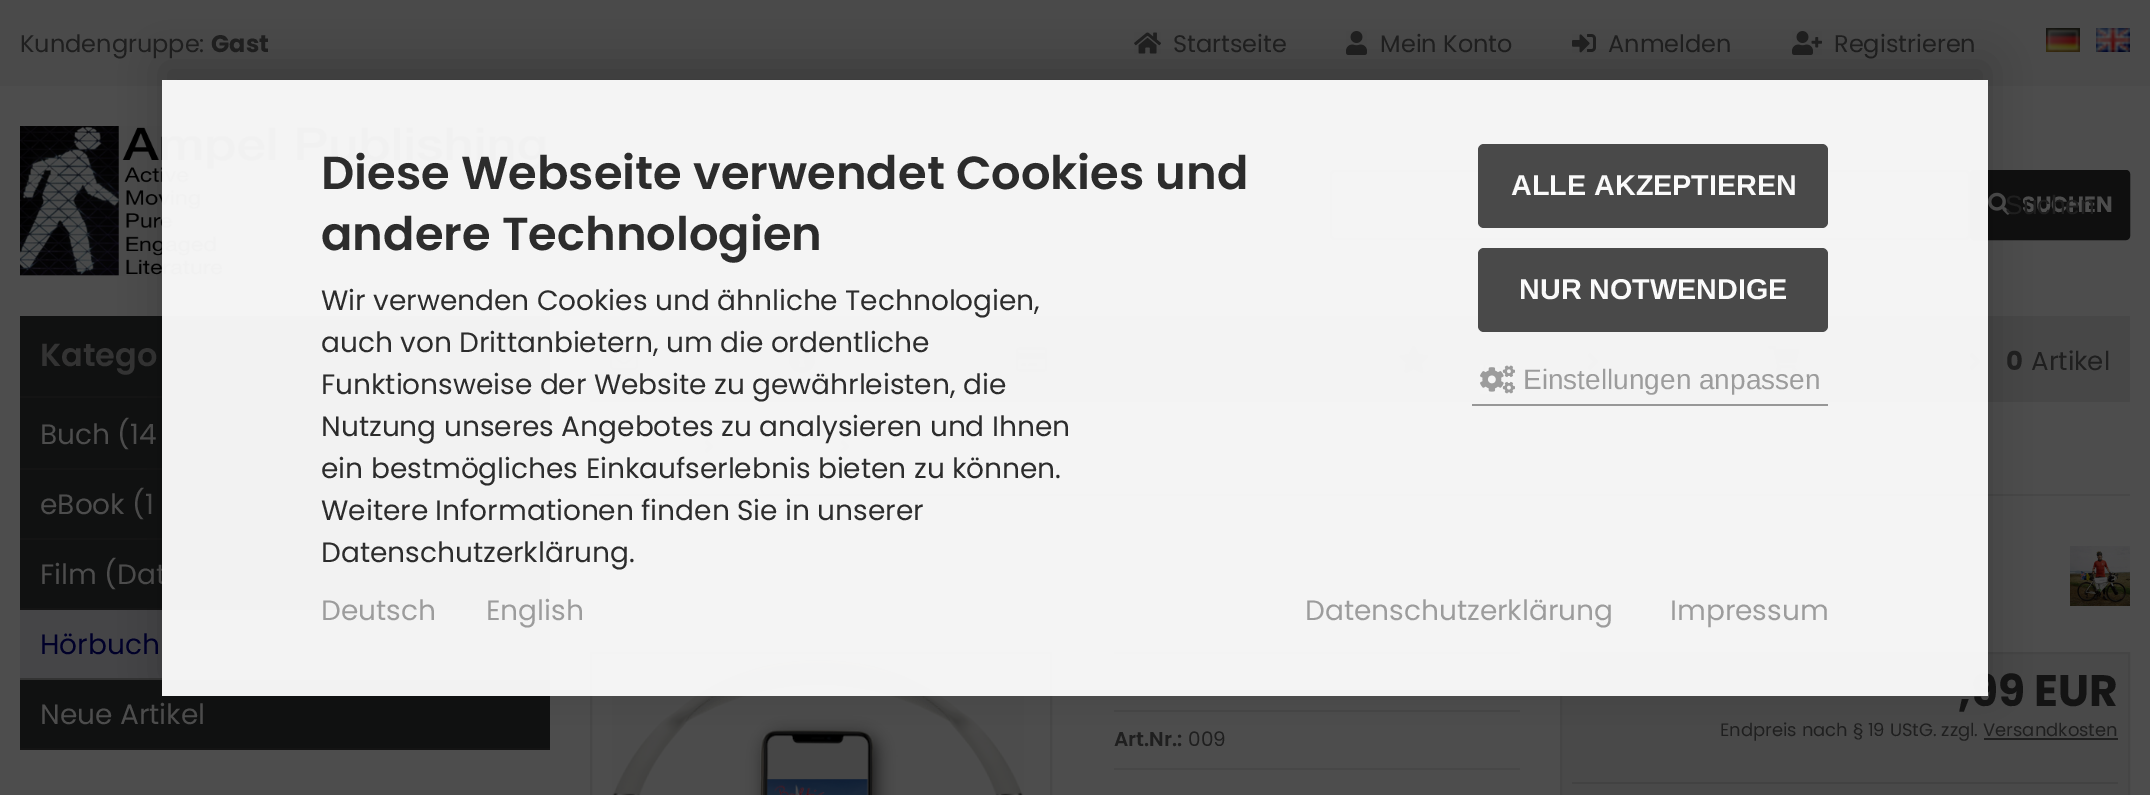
%!PS
<< /PageSize [2150 795] /PageUsesTransparency true >> setpagedevice
/alpha { dup .setfillconstantalpha .setstrokeconstantalpha } def
/roundrect { 5 dict begin { /r /h /w /y /x } { exch def } forall
  x r add y moveto x w add y 2 copy h add r arct x w add y h add x 1 index r arct
  x y h add x y r arct x y 2 copy exch w add exch r arct closepath end } def
/shadow { 12 dict begin { /a /b /q /h /w /y /x } { exch def } forall gsave /was 0 def
  9 -2 -9 { dup b mul 4 div /e exch def 1 sub .425 mul 2.718 exch exp 1 add a .99 .min exch div /now exch def
    1 1 now sub 1 was sub div sub alpha /was now def
    w h .min e 2 mul add 0 gt { x e sub y e sub w e 2 mul add h e 2 mul add
      q e add b .6 mul add w h .min 2 div e add .min 0 .max roundrect fill } if } for grestore end } def
/picture { 5 dict begin { /h /w /y /x /name } { exch def } forall
  gsave x y translate w h scale
  w h 8 [w 0 0 h 0 0] name (r) file false 3 colorimage grestore end } def
0 .pushpdf14devicefilter
0 795 translate 1 -1 scale
4 setmiterlimit
0.302 setgray
0 0 2150 795 rectfill
0.29 setgray
0 0 2150 86 rectfill
/Poppins-Regular [24 0 0 -24 0 0] selectfont
0.122 setgray
20 52 moveto (Kundengruppe:) show
/Poppins-Bold [24 0 0 -24 0 0] selectfont
211 52 moveto (Gast) show
(img1.rgb) 1134 32 27 22 picture
/Poppins-Regular [24 0 0 -24 0 0] selectfont
1173 52 moveto (Startseite) show
(img2.rgb) 1346 31 21 24 picture
1380 52 moveto (Mein Konto) show
(img3.rgb) 1572 34 24 19 picture
1608 52 moveto (Anmelden) show
(img4.rgb) 1792 31 30 24 picture
1834 52 moveto (Registrieren) show
(img5.rgb) 2046 28 34 24 picture
(img6.rgb) 2096 28 34 24 picture
(img7.rgb) 20 126 526 150 picture
0.259 setgray
2 setlinewidth
1331 171 638 68 3 roundrect stroke
0.059 setgray
1971 171 158 68 3 roundrect gsave fill grestore
stroke
(img8.rgb) 1988 192 22 23 picture
/Poppins-Bold [22 0 0 -22 0 0] selectfont
0.302 setgray
2022 212 moveto (SUCHEN) show
/LiberationSans-Regular [26.5 0 0 -26.5 0 0] selectfont
0.122 setgray
2005 214 moveto (Suchen) show
0.063 0.067 0.067 setrgbcolor
20 316 530 80 rectfill
/Poppins-SemiBold [32 0 0 -32 0 0] selectfont
0.2 setgray
40 366 moveto (Katego) show
0.063 0.067 0.067 setrgbcolor
20 398 530 70 rectfill
0.078 setgray
20 396 530 2 rectfill
20 468 530 2 rectfill
/Poppins-Regular [28 0 0 -28 0 0] selectfont
0.302 setgray
40 444 moveto (Buch \(14) show
0.063 0.067 0.067 setrgbcolor
20 470 530 68 rectfill
0.078 setgray
20 538 530 2 rectfill
0.302 setgray
40 514 moveto (eBook \(1) show
0.063 0.067 0.067 setrgbcolor
20 540 530 68 rectfill
0.078 setgray
20 608 530 2 rectfill
0.302 setgray
40 584 moveto (Film \(Dat) show
0.271 0.271 0.278 setrgbcolor
20 610 530 68 rectfill
0.2 setgray
20 678 530 2 rectfill
0 0 0.161 setrgbcolor
40 654 moveto (Hörbuch) show
0.063 0.067 0.067 setrgbcolor
20 680 530 68 rectfill
0.078 setgray
20 748 530 2 rectfill
0.302 setgray
40 724 moveto (Neue Artikel) show
0.29 setgray
20 790 530 5 rectfill
0.278 setgray
590 316 1540 86 rectfill
(img9.rgb) 610 349 28 21 picture
(img10.rgb) 788 346 28 27 picture
(img11.rgb) 1016 347 32 25 picture
(img12.rgb) 1399 345 30 29 picture
(img13.rgb) 1587 352 12 19 picture
(img14.rgb) 1768 345 32 29 picture
(img13.rgb) 1969 352 12 19 picture
/Poppins-Bold [26 0 0 -26 0 0] selectfont
0.122 setgray
2006 370 moveto (0) show
/Poppins-Regular [26 0 0 -26 0 0] selectfont
2031 370 moveto (Artikel) show
0.278 setgray
590 494 1540 2 rectfill
(img15.rgb) 705 440 8 13 picture
(img15.rgb) 841 440 8 13 picture
(img16.rgb) 2070 546 60 60 picture
591 653 460 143 rectstroke
(img17.rgb) 612 659 412 136 picture
1114 652 406 2 rectfill
1114 710 406 2 rectfill
1114 768 406 2 rectfill
/Poppins-SemiBold [20 0 0 -20 0 0] selectfont
0.122 setgray
1114 746 moveto (Art.Nr.:) show
/Poppins-Regular [20 0 0 -20 0 0] selectfont
1188 746 moveto (009) show
0.286 setgray
newpath 1561 653 moveto 2129 653 lineto 2129 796 lineto 1561 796 lineto closepath gsave fill grestore
0.271 setgray
stroke
/Poppins-Bold [44 0 0 -44 0 0] selectfont
0.078 setgray
1958 706 moveto (,99 EUR) show
/Poppins-Regular [18 0 0 -18 0 0] selectfont
0.122 setgray
1720 736 moveto (Endpreis nach § 19 UStG. zzgl. Versandkosten) show
1984 738 134 2 rectfill
0.259 setgray
1572 782 546 2 rectfill
gsave
newpath 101 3 moveto 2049 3 lineto 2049 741 lineto 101 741 lineto closepath 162 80 moveto 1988 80 lineto 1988 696 lineto 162 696 lineto closepath eoclip newpath
0 setgray
162 64 1826 616 0 20 0.19 shadow
grestore
0.97 alpha
0.976 setgray
162 80 1826 616 rectfill
/Poppins-SemiBold [46.4 0 0 -46.4 0 0] selectfont
1 alpha
0.173 setgray
321 189 moveto (Diese Webseite verwendet Cookies und) show
321 250 moveto (andere Technologien) show
/Poppins-Regular [28 0 0 -28 0 0] selectfont
321 310 moveto (Wir verwenden Cookies und ähnliche Technologien,) show
321 352 moveto (auch von Drittanbietern, um die ordentliche) show
321 394 moveto (Funktionsweise der Website zu gewährleisten, die) show
321 436 moveto (Nutzung unseres Angebotes zu analysieren und Ihnen) show
321 478 moveto (ein bestmögliches Einkaufserlebnis bieten zu können.) show
321 520 moveto (Weitere Informationen finden Sie in unserer) show
321 562 moveto (Datenschutzerklärung.) show
0.286 setgray
1478 144 350 84 6 roundrect fill
/LiberationSans-Bold [28.75 0 0 -28.75 0 0] selectfont
0.98 setgray
1511 195 moveto (ALLE AKZEPTIEREN) show
0.286 setgray
1478 248 350 84 6 roundrect fill
0.98 setgray
1519 299 moveto (NUR NOTWENDIGE) show
0.592 setgray
1472 404 356 2 rectfill
(img18.rgb) 1480 365 35 29 picture
/LiberationSans-Regular [28 0 0 -28 0 0] selectfont
0.612 setgray
1523 389 moveto (Einstellungen anpassen) show
/Poppins-Regular [28 0 0 -28 0 0] selectfont
321 620 moveto (Deutsch) show
486 620 moveto (English) show
1305 620 moveto (Datenschutzerklärung) show
1670 620 moveto (Impressum) show
.poppdf14devicefilter showpage
